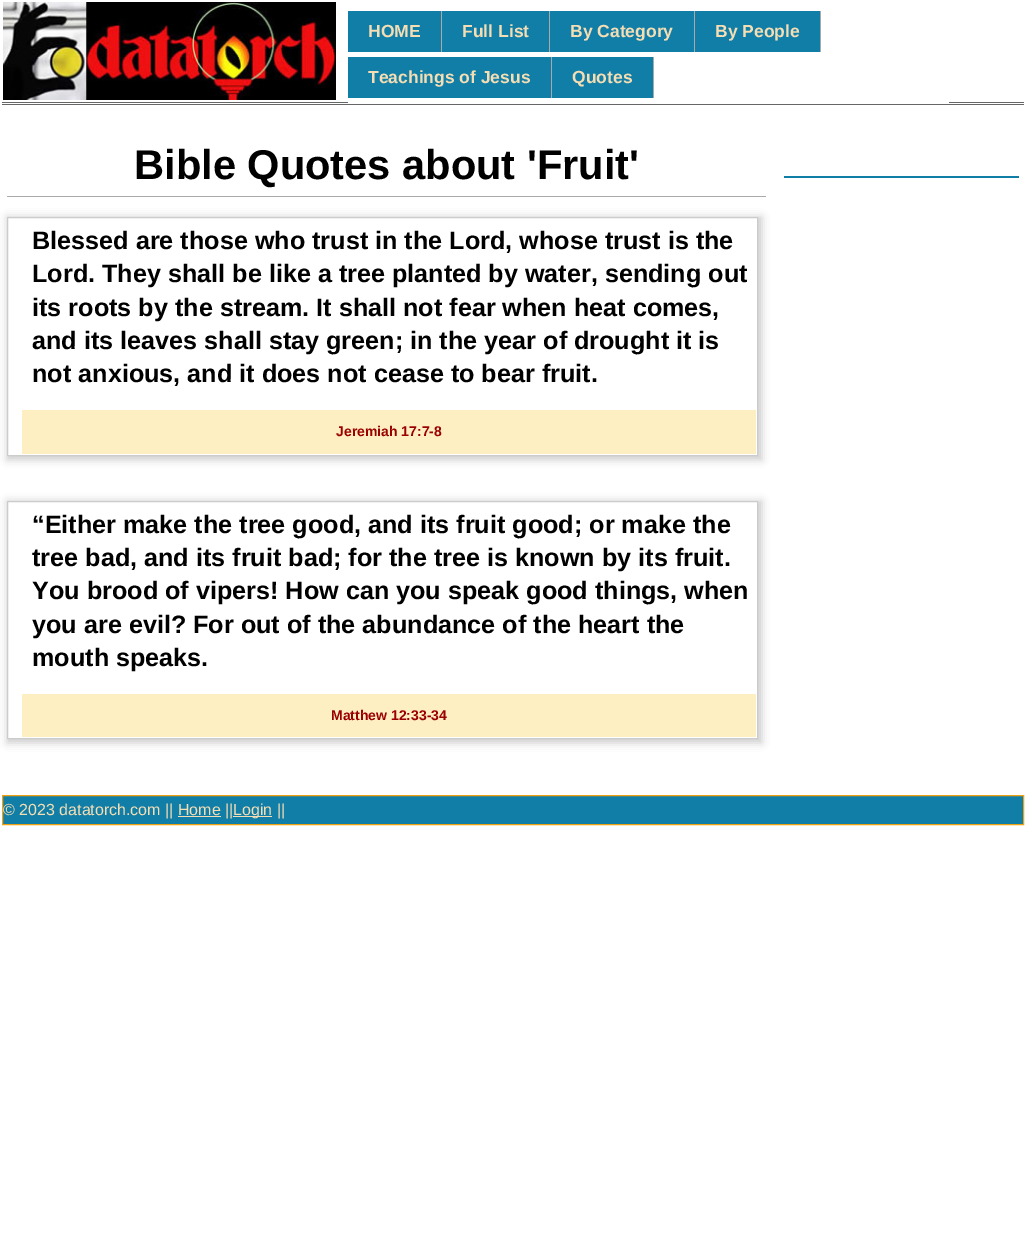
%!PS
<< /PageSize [1032 1236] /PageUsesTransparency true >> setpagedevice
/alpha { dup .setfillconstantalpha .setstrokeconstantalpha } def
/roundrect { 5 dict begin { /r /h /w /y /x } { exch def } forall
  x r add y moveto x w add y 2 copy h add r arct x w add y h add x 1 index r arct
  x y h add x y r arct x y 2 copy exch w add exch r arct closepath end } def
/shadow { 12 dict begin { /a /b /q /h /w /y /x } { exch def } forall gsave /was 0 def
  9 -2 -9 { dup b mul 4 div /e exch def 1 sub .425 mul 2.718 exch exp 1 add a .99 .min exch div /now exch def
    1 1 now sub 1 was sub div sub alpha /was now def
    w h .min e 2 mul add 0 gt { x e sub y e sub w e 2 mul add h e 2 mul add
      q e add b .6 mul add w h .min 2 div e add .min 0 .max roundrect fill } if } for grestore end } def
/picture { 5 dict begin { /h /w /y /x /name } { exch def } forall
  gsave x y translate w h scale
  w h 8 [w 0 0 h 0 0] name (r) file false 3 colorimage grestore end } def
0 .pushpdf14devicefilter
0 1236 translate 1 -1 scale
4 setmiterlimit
1 setgray
0 0 1032 1236 rectfill
0.4 setgray
2 102 1022 1 rectfill
2 104 1022 1 rectfill
(img1.rgb) 3 2 333 98 picture
1 setgray
348 102 601 1 rectfill
0.067 0.494 0.659 setrgbcolor
348 11 93 41 rectfill
0.663 setgray
441 11 1 41 rectfill
/LiberationSans-Bold [17.5 0 0 -17.5 0 0] selectfont
0.961 0.871 0.702 setrgbcolor
368 37 moveto (HOME) show
0.067 0.494 0.659 setrgbcolor
442 11 107 41 rectfill
0.663 setgray
549 11 1 41 rectfill
0.961 0.871 0.702 setrgbcolor
462 37 moveto (Full List) show
0.067 0.494 0.659 setrgbcolor
550 11 144 41 rectfill
0.663 setgray
694 11 1 41 rectfill
0.961 0.871 0.702 setrgbcolor
570 37 moveto (By Category) show
0.067 0.494 0.659 setrgbcolor
695 11 125 41 rectfill
0.663 setgray
820 11 1 41 rectfill
0.961 0.871 0.702 setrgbcolor
715 37 moveto (By People) show
0.067 0.494 0.659 setrgbcolor
348 57 203 41 rectfill
0.663 setgray
551 57 1 41 rectfill
0.961 0.871 0.702 setrgbcolor
368 83 moveto (Teachings of Jesus) show
0.067 0.494 0.659 setrgbcolor
552 57 101 41 rectfill
0.663 setgray
653 57 1 41 rectfill
0.961 0.871 0.702 setrgbcolor
572 83 moveto (Quotes) show
0.667 setgray
7 196 759 1 rectfill
/LiberationSans-Bold [41.6 0 0 -41.6 0 0] selectfont
0 setgray
134 179 moveto (Bible Quotes about 'Fruit') show
gsave
newpath 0 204 moveto 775 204 lineto 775 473 lineto 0 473 lineto closepath 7 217 moveto 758 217 lineto 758 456 lineto 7 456 lineto closepath eoclip newpath
0.8 setgray
7 217 755 243 0 4 1 shadow
grestore
0.8 setgray
7.5 217.5 750 238 rectstroke
/LiberationSans-Bold [25.2 0 0 -25.2 0 0] selectfont
0 setgray
32 249 moveto (Blessed are those who trust in the Lord, whose trust is the) show
32 282 moveto (Lord. They shall be like a tree planted by water, sending out) show
32 316 moveto (its roots by the stream. It shall not fear when heat comes,) show
32 349 moveto (and its leaves shall stay green; in the year of drought it is) show
32 382 moveto (not anxious, and it does not cease to bear fruit.) show
0.992 0.937 0.757 setrgbcolor
22 410 734 44 rectfill
/LiberationSans-Bold [14 0 0 -14 0 0] selectfont
0.608 0 0 setrgbcolor
336 436 moveto (Jeremiah 17:7-8) show
gsave
newpath 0 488 moveto 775 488 lineto 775 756 lineto 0 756 lineto closepath 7 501 moveto 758 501 lineto 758 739 lineto 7 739 lineto closepath eoclip newpath
0.8 setgray
7 501 755 242 0 4 1 shadow
grestore
0.8 setgray
7.5 501.5 750 237 rectstroke
/LiberationSans-Bold [25.2 0 0 -25.2 0 0] selectfont
0 setgray
32 533 moveto (“Either make the tree good, and its fruit good; or make the) show
32 566 moveto (tree bad, and its fruit bad; for the tree is known by its fruit.) show
32 599 moveto (You brood of vipers! How can you speak good things, when) show
32 633 moveto (you are evil? For out of the abundance of the heart the) show
32 666 moveto (mouth speaks.) show
0.992 0.937 0.757 setrgbcolor
22 694 734 43 rectfill
/LiberationSans-Bold [14 0 0 -14 0 0] selectfont
0.608 0 0 setrgbcolor
331 720 moveto (Matthew 12:33-34) show
0.067 0.494 0.659 setrgbcolor
784 176 235 2 rectfill
newpath 2.5 795.5 moveto 1023.5 795.5 lineto 1023.5 824.5 lineto 2.5 824.5 lineto closepath gsave fill grestore
0.933 0.631 0.067 setrgbcolor
stroke
/LiberationSans-Regular [16 0 0 -16 0 0] selectfont
0.961 0.871 0.702 setrgbcolor
3 815 moveto (© 2023 datatorch.com || Home ||) show
233 816 39 1 rectfill
233 815 moveto (Login ||) show
178 816 43 1 rectfill
.poppdf14devicefilter showpage
